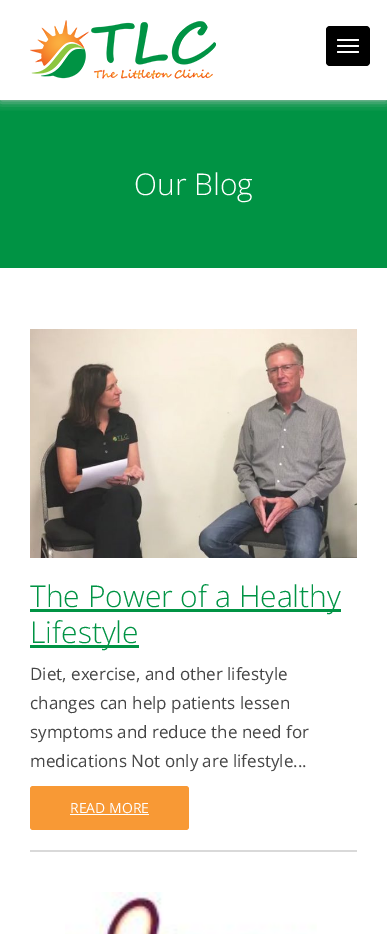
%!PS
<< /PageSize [387 934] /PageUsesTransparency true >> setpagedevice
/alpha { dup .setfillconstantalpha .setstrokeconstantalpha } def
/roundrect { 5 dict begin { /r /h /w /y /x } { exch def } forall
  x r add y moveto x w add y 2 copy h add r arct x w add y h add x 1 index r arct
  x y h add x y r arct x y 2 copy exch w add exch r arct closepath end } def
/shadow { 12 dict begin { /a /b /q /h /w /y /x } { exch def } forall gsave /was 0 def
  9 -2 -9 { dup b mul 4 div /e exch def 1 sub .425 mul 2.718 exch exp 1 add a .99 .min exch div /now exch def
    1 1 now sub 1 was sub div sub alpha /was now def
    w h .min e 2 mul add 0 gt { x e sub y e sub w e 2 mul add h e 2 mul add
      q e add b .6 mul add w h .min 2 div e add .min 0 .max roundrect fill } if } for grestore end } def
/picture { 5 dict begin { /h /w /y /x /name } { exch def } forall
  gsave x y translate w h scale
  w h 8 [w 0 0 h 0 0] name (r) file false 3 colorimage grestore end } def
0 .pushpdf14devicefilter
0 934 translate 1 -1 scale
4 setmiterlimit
1 setgray
0 0 387 934 rectfill
0 0.576 0.267 setrgbcolor
0 100 387 168 rectfill
gsave
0 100 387 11 rectclip
0.8 setgray
0 0 387 100 0 5.5 1 shadow
grestore
(img1.rgb) 30 20 186 59 picture
0 setgray
326 26 44 40 4 roundrect fill
1 setgray
337 39 22 2 1 roundrect fill
337 45 22 2 1 roundrect fill
337 51 22 2 1 roundrect fill
/OpenSans-Light [30 0 0 -30 0 0] selectfont
134 195 moveto (Our Blog) show
(img2.rgb) 30 329 327 229 picture
0 0.576 0.267 setrgbcolor
30 609 311 3 rectfill
30 607 moveto (The Power of a Healthy) show
30 645 109 3 rectfill
30 643 moveto (Lifestyle) show
/OpenSans-Regular [17 0 0 -17 0 0] selectfont
0.275 setgray
30 680 moveto (Diet, exercise, and other lifestyle) show
30 709 moveto (changes can help patients lessen) show
30 738 moveto (symptoms and reduce the need for) show
30 767 moveto (medications Not only are lifestyle...) show
0.973 0.6 0.208 setrgbcolor
30 786 159 44 3 roundrect fill
/OpenSans-Regular [14 0 0 -14 0 0] selectfont
1 setgray
70 813 moveto (READ MORE) show
70 814 79 1 rectfill
0.851 setgray
30 850 327 2 rectfill
(img3.rgb) 65 892 252 42 picture
.poppdf14devicefilter showpage
